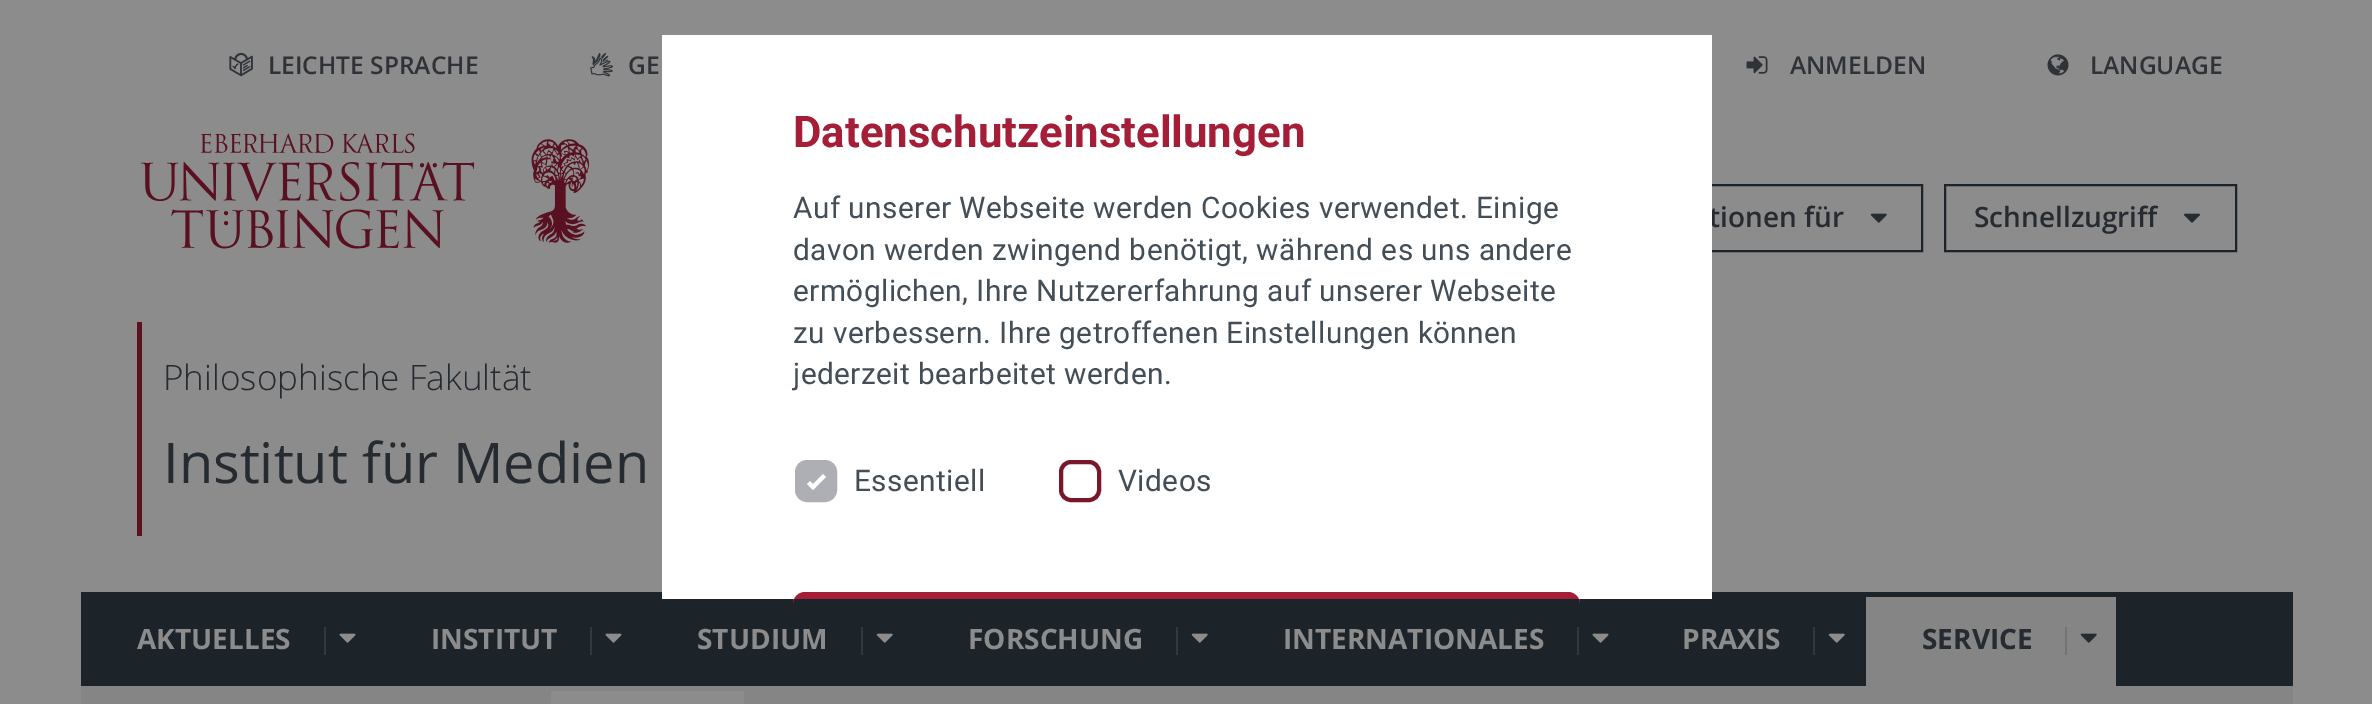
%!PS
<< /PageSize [2372 704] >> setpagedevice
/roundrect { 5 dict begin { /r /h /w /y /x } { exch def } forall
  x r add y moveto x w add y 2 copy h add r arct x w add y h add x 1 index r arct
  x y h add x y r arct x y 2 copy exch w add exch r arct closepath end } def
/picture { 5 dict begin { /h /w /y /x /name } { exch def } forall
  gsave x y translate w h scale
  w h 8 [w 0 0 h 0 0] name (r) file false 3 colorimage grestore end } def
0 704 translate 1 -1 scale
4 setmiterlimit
0.549 setgray
0 0 2372 704 rectfill
(img1.rgb) 229 52 24 25 picture
/OpenSans-SemiBold [24.5 0 0 -24.5 0 0] selectfont
0.184 0.2 0.22 setrgbcolor
268 74 moveto (LEICHTE SPRACHE) show
(img2.rgb) 590 52 23 25 picture
628 74 moveto (GE) show
(img3.rgb) 1746 56 22 18 picture
1790 74 moveto (ANMELDEN) show
(img4.rgb) 2047 54 22 22 picture
2090 74 moveto (LANGUAGE) show
(img5.rgb) 140 133 449 116 picture
0.11 0.141 0.161 setrgbcolor
2 setlinewidth
1573 185 349 66 rectstroke
/OpenSans-SemiBold [28 0 0 -28 0 0] selectfont
0.145 0.169 0.188 setrgbcolor
1709 227 moveto (tionen für) show
(img6.rgb) 1870 213 17 10 picture
0.11 0.141 0.161 setrgbcolor
1945 185 291 66 rectstroke
0.145 0.169 0.188 setrgbcolor
1974 227 moveto (Schnellzugriff) show
(img7.rgb) 2184 213 16 10 picture
0.357 0.067 0.118 setrgbcolor
137 322 5 214 rectfill
/OpenSans-Light [35 0 0 -35 0 0] selectfont
0.145 0.169 0.188 setrgbcolor
163 390 moveto (Philosophische Fakultät) show
/OpenSans-Regular [56 0 0 -56 0 0] selectfont
163 483 moveto (Institut für Medien) show
0.11 0.141 0.161 setrgbcolor
81 592 2212 94 rectfill
/OpenSans-Bold [28 0 0 -28 0 0] selectfont
0.549 setgray
137 649 moveto (AKTUELLES) show
0.196 0.224 0.239 setrgbcolor
324 627 2 28 rectfill
(img8.rgb) 339 633 17 10 picture
0.549 setgray
431 649 moveto (INSTITUT) show
0.196 0.224 0.239 setrgbcolor
590 627 2 28 rectfill
(img8.rgb) 605 633 17 10 picture
0.549 setgray
697 649 moveto (STUDIUM) show
0.196 0.224 0.239 setrgbcolor
861 627 2 28 rectfill
(img9.rgb) 876 633 17 10 picture
0.549 setgray
968 649 moveto (FORSCHUNG) show
0.196 0.224 0.239 setrgbcolor
1176 627 2 28 rectfill
(img9.rgb) 1191 633 17 10 picture
0.549 setgray
1283 649 moveto (INTERNATIONALES) show
0.196 0.224 0.239 setrgbcolor
1577 627 2 28 rectfill
(img8.rgb) 1592 633 17 10 picture
0.549 setgray
1682 649 moveto (PRAXIS) show
0.196 0.224 0.239 setrgbcolor
1813 627 2 28 rectfill
(img9.rgb) 1828 633 17 10 picture
0.522 setgray
1866 597 250 89 rectfill
0.145 0.169 0.188 setrgbcolor
1922 649 moveto (SERVICE) show
0.447 0.451 0.455 setrgbcolor
2065 627 2 28 rectfill
(img10.rgb) 2080 633 17 10 picture
0.522 setgray
81 686 2212 18 rectfill
0.549 setgray
551 691 193 13 rectfill
1 setgray
662 35 1050 564 rectfill
/Roboto-Bold [43.75 0 0 -43.75 0 0] selectfont
0.647 0.118 0.216 setrgbcolor
793 147 moveto (Datenschutzeinstellungen) show
/Roboto-Regular [29.75 0 0 -29.75 0 0] selectfont
0.267 0.306 0.341 setrgbcolor
793 218 moveto 0.45 0 (Auf unserer Webseite werden Cookies verwendet. Einige) ashow
793 260 moveto 0.45 0 (davon werden zwingend benötigt, während es uns andere) ashow
793 301 moveto 0.45 0 (ermöglichen, Ihre Nutzererfahrung auf unserer Webseite) ashow
793 343 moveto 0.45 0 (zu verbessern. Ihre getroffenen Einstellungen können) ashow
793 384 moveto 0.45 0 (jederzeit bearbeitet werden.) ashow
0.678 0.686 0.71 setrgbcolor
797 462 38 38 10 roundrect gsave fill grestore
4 setlinewidth
stroke
0.267 0.306 0.341 setrgbcolor
854 491 moveto 0.45 0 (Essentiell) ashow
1 setgray
newpath 810 487 moveto 823 474 lineto 826 477 lineto 813 490 lineto closepath fill
newpath 807 484 moveto 810 481 lineto 816 487 lineto 813 490 lineto closepath fill
0.478 0.086 0.161 setrgbcolor
1061 462 38 38 10 roundrect stroke
0.267 0.306 0.341 setrgbcolor
1118 491 moveto 0.45 0 (Videos) ashow
0.647 0.118 0.216 setrgbcolor
newpath 805 592 moveto 1568 592 lineto 1574.5 592 1580 597.5 1580 604 curveto 1580 599 lineto 793 599 lineto 793 604 lineto 793 597.5 798.5 592 805 592 curveto closepath fill
showpage
